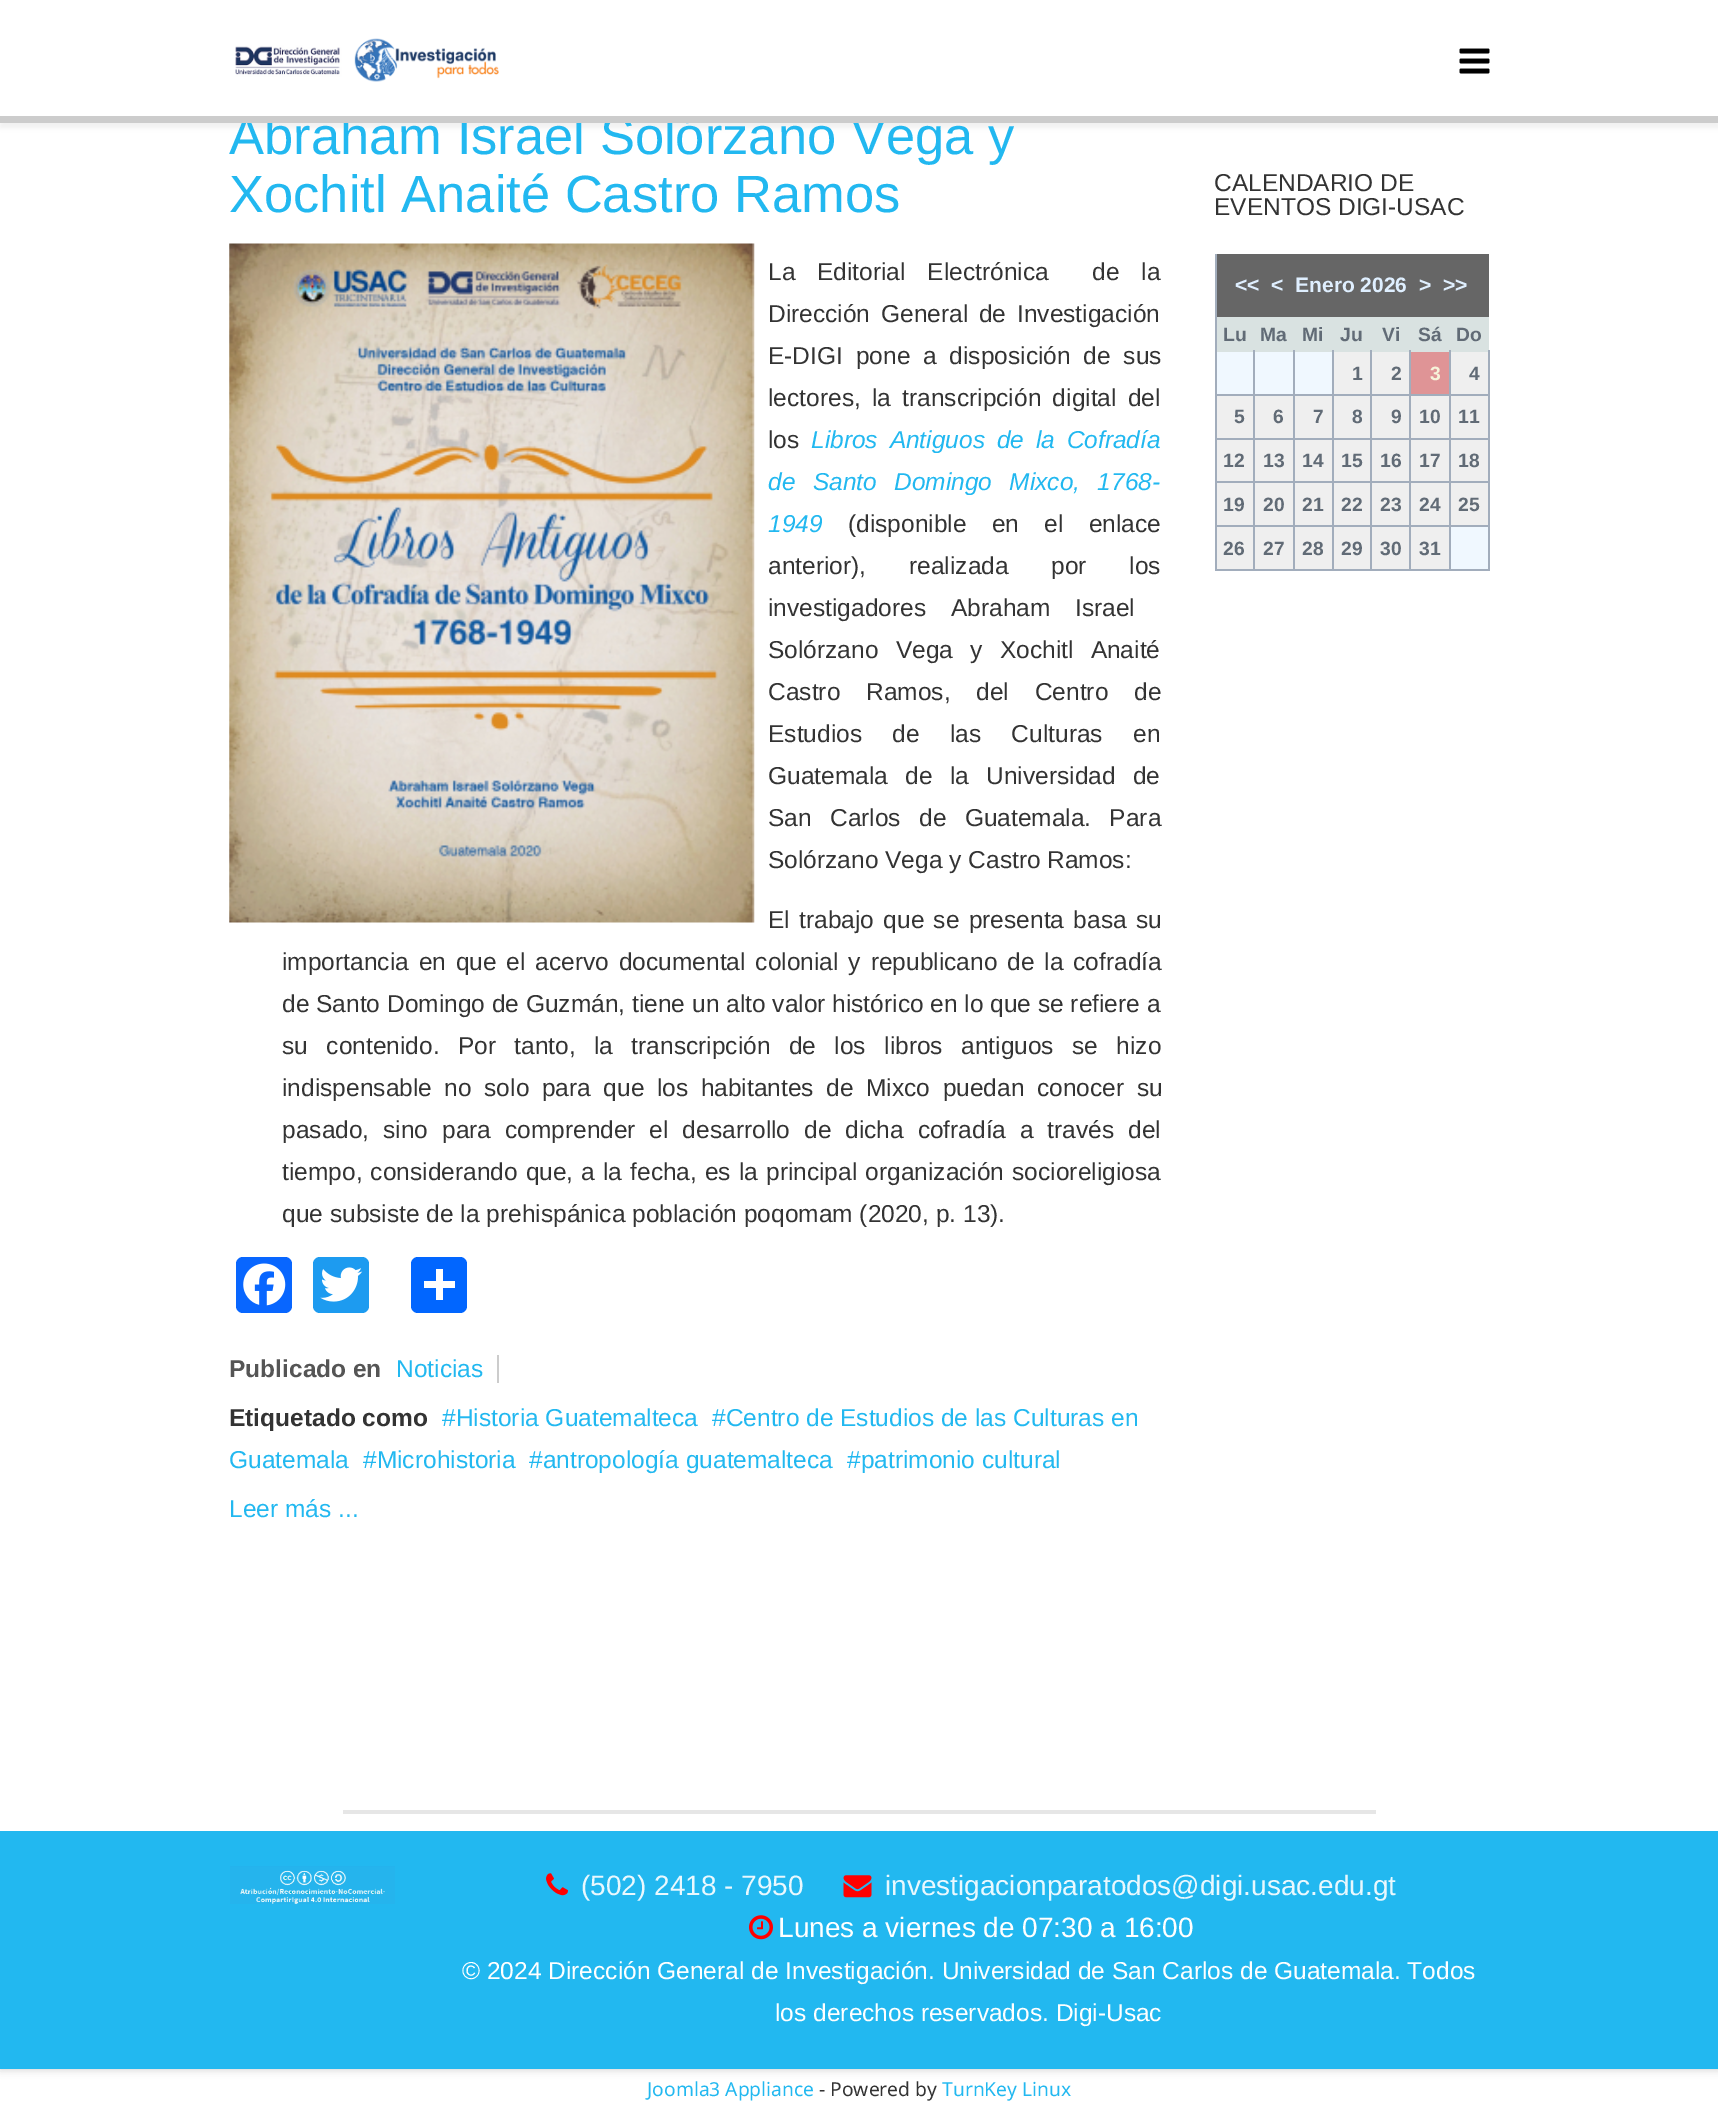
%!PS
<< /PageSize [1718 2109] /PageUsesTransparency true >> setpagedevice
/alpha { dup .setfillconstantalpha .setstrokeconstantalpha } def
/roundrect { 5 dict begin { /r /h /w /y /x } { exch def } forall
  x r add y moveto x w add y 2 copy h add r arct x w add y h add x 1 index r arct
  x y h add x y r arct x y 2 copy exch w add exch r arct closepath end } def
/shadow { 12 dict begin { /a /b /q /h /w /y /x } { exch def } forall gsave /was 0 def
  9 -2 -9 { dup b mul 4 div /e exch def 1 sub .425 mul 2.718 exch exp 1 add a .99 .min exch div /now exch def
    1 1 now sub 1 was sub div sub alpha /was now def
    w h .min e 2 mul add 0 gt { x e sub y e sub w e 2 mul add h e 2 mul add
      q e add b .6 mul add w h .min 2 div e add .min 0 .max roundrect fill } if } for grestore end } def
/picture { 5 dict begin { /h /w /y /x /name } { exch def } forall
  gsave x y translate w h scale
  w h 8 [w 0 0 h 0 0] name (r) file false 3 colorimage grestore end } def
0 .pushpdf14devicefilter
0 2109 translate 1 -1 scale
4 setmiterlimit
1 setgray
0 0 1718 2109 rectfill
0 setgray
0 -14 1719 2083 0 4.5 0.2 shadow
1 setgray
0 123 1718 1708 rectfill
0 setgray
0 5 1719 123 0 2.5 0.05 shadow
/LiberationSans-Regular [52.5 0 0 -52.5 0 0] selectfont
0.133 0.722 0.941 setrgbcolor
229 154 moveto (Abraham Israel Solórzano Vega y) show
1 setgray
0 0 1718 116 rectfill
0.8 setgray
0 116 1718 7 rectfill
(img1.rgb) 235 38 264 44 picture
(img2.rgb) 1459 48 31 26 picture
0.133 0.722 0.941 setrgbcolor
229 212 moveto (Xochitl Anaité Castro Ramos) show
(img3.rgb) 229 243 526 680 picture
/LiberationSans-Regular [24.5 0 0 -24.5 0 0] selectfont
0.2 setgray
768 280 moveto 15 0 32 (La Editorial Electrónica  de la) widthshow
768 322 moveto 4 0 32 (Dirección General de Investigación) widthshow
768 364 moveto 6 0 32 (E-DIGI pone a disposición de sus) widthshow
768 406 moveto 4.5 0 32 (lectores, la transcripción digital del) widthshow
768 448 moveto (los) show
/LiberationSans-Italic [24.5 0 0 -24.5 0 0] selectfont
0.133 0.722 0.941 setrgbcolor
811 448 moveto 5 0 32 (Libros Antiguos de la Cofradía) widthshow
768 490 moveto 10.5 0 32 (de Santo Domingo Mixco, 1768-) widthshow
768 532 moveto (1949) show
/LiberationSans-Regular [24.5 0 0 -24.5 0 0] selectfont
0.2 setgray
848 532 moveto 18.5 0 32 (\(disponible en el enlace) widthshow
768 574 moveto (anterior\),) show
909 574 moveto 36 0 32 (realizada por los) widthshow
768 616 moveto 18 0 32 (investigadores Abraham Israel) widthshow
768 658 moveto 10.5 0 32 (Solórzano Vega y Xochitl Anaité) widthshow
768 700 moveto 19 0 32 (Castro Ramos, del Centro de) widthshow
768 742 moveto 23.5 0 32 (Estudios de las Culturas en) widthshow
768 784 moveto 10.5 0 32 (Guatemala de la Universidad de) widthshow
768 826 moveto 11.5 0 32 (San Carlos de Guatemala. Para) widthshow
768 868 moveto (Solórzano Vega y Castro Ramos:) show
768 928 moveto 2.5 0 32 (El trabajo que se presenta basa su) widthshow
282 970 moveto 3.1 0 32 (importancia en que el acervo documental colonial y republicano de la cofradía) widthshow
282 1012 moveto (de Santo Domingo de Guzmán, tiene un alto valor histórico en lo que se refiere a) show
282 1054 moveto 11.6 0 32 (su contenido. Por tanto, la transcripción de los libros antiguos se hizo) widthshow
282 1096 moveto 5.75 0 32 (indispensable no solo para que los habitantes de Mixco puedan conocer su) widthshow
282 1138 moveto 7.1 0 32 (pasado, sino para comprender el desarrollo de dicha cofradía a través del) widthshow
282 1180 moveto 1.25 0 32 (tiempo, considerando que, a la fecha, es la principal organización socioreligiosa) widthshow
282 1222 moveto (que subsiste de la prehispánica población poqomam \(2020, p. 13\).) show
0.031 0.4 1 setrgbcolor
236 1257 56 56 7 roundrect fill
(img4.rgb) 243 1263 43 43 picture
0.114 0.608 0.941 setrgbcolor
313 1257 56 56 7 roundrect fill
(img5.rgb) 320 1267 43 35 picture
0.004 0.4 1 setrgbcolor
411 1257 56 56 7 roundrect fill
1 setgray
436 1269 7 31 rectfill
424 1281 31 7 rectfill
/LiberationSans-Bold [24.5 0 0 -24.5 0 0] selectfont
0.333 setgray
229 1377 moveto (Publicado en) show
/LiberationSans-Regular [24.5 0 0 -24.5 0 0] selectfont
0.133 0.722 0.941 setrgbcolor
396 1377 moveto (Noticias) show
0.8 setgray
497 1355 2 28 rectfill
/LiberationSans-Bold [24.5 0 0 -24.5 0 0] selectfont
0.2 setgray
229 1426 moveto (Etiquetado como) show
/LiberationSans-Regular [24.5 0 0 -24.5 0 0] selectfont
0.133 0.722 0.941 setrgbcolor
442 1426 moveto (#Historia Guatemalteca) show
712 1426 moveto (#Centro de Estudios de las Culturas en) show
229 1468 moveto (Guatemala) show
363 1468 moveto (#Microhistoria) show
529 1468 moveto (#antropología guatemalteca) show
847 1468 moveto (#patrimonio cultural) show
229 1517 moveto (Leer más ...) show
0.2 setgray
1214 191 moveto (CALENDARIO DE) show
1214 215 moveto (EVENTOS DIGI-USAC) show
0.635 0.678 0.737 setrgbcolor
1215 254 2 317 rectfill
0.4 setgray
1217 254 272 63 rectfill
/LiberationSans-Bold [21 0 0 -21 0 0] selectfont
0.875 0.937 1 setrgbcolor
1235 292 moveto (<<) show
1271 292 moveto (<) show
1295 292 moveto (Enero 2026) show
1419 292 moveto (>) show
1443 292 moveto (>>) show
0.851 0.886 0.882 setrgbcolor
1217 317 272 35 rectfill
/LiberationSans-Bold [19.25 0 0 -19.25 0 0] selectfont
0.38 0.42 0.463 setrgbcolor
1223 341 moveto (Lu) show
1260 341 moveto (Ma) show
1302 341 moveto (Mi) show
1340 341 moveto (Ju) show
1382 341 moveto (Vi) show
1418 341 moveto (Sá) show
1456 341 moveto (Do) show
0.941 0.973 1 setrgbcolor
1217 352 36 42 rectfill
0.635 0.678 0.737 setrgbcolor
1488 350 2 221 rectfill
1449 569 40 2 rectfill
1449 525 2 46 rectfill
1449 525 40 2 rectfill
1449 481 2 46 rectfill
1449 481 40 2 rectfill
1449 438 2 45 rectfill
1449 438 40 2 rectfill
1449 394 2 45 rectfill
1449 394 40 2 rectfill
1449 350 2 46 rectfill
1409 569 42 2 rectfill
1409 525 2 46 rectfill
1409 525 42 2 rectfill
1409 481 2 46 rectfill
1409 481 42 2 rectfill
1409 438 2 45 rectfill
1409 438 42 2 rectfill
1409 394 2 45 rectfill
1409 394 42 2 rectfill
1409 350 2 46 rectfill
1370 569 41 2 rectfill
1370 525 2 46 rectfill
1370 525 41 2 rectfill
1370 481 2 46 rectfill
1370 481 41 2 rectfill
1370 438 2 45 rectfill
1370 438 41 2 rectfill
1370 394 2 45 rectfill
1370 394 41 2 rectfill
1370 350 2 46 rectfill
1332 569 40 2 rectfill
1332 525 2 46 rectfill
1332 525 40 2 rectfill
1332 481 2 46 rectfill
1332 481 40 2 rectfill
1332 438 2 45 rectfill
1332 438 40 2 rectfill
1332 394 2 45 rectfill
1332 394 40 2 rectfill
1332 350 2 46 rectfill
1293 569 41 2 rectfill
1293 525 2 46 rectfill
1293 525 41 2 rectfill
1293 481 2 46 rectfill
1293 481 41 2 rectfill
1293 438 2 45 rectfill
1293 438 41 2 rectfill
1293 394 2 45 rectfill
1293 394 41 2 rectfill
1293 350 2 46 rectfill
1253 569 42 2 rectfill
1253 525 2 46 rectfill
1253 525 42 2 rectfill
1253 481 2 46 rectfill
1253 481 42 2 rectfill
1253 438 2 45 rectfill
1253 438 42 2 rectfill
1253 394 2 45 rectfill
1253 394 42 2 rectfill
1253 350 2 46 rectfill
1215 394 40 2 rectfill
0.941 0.973 1 setrgbcolor
1255 352 38 42 rectfill
1295 352 37 42 rectfill
0.937 setgray
1334 352 36 42 rectfill
0.38 0.42 0.463 setrgbcolor
1352 380 moveto (1) show
0.937 setgray
1372 352 37 42 rectfill
0.38 0.42 0.463 setrgbcolor
1391 380 moveto (2) show
0.875 0.58 0.588 setrgbcolor
1411 352 38 42 rectfill
0.965 0.957 0.855 setrgbcolor
1430 380 moveto (3) show
0.937 setgray
1451 352 37 42 rectfill
0.38 0.42 0.463 setrgbcolor
1469 380 moveto (4) show
0.937 setgray
1217 396 36 42 rectfill
0.635 0.678 0.737 setrgbcolor
1215 438 40 2 rectfill
0.38 0.42 0.463 setrgbcolor
1234 423 moveto (5) show
0.937 setgray
1255 396 38 42 rectfill
0.38 0.42 0.463 setrgbcolor
1273 423 moveto (6) show
0.937 setgray
1295 396 37 42 rectfill
0.38 0.42 0.463 setrgbcolor
1313 423 moveto (7) show
0.937 setgray
1334 396 36 42 rectfill
0.38 0.42 0.463 setrgbcolor
1352 423 moveto (8) show
0.937 setgray
1372 396 37 42 rectfill
0.38 0.42 0.463 setrgbcolor
1391 423 moveto (9) show
0.937 setgray
1411 396 38 42 rectfill
0.38 0.42 0.463 setrgbcolor
1419 423 moveto (10) show
0.937 setgray
1451 396 37 42 rectfill
0.38 0.42 0.463 setrgbcolor
1458 423 moveto (11) show
0.937 setgray
1217 440 36 41 rectfill
0.635 0.678 0.737 setrgbcolor
1215 481 40 2 rectfill
0.38 0.42 0.463 setrgbcolor
1223 467 moveto (12) show
0.937 setgray
1255 440 38 41 rectfill
0.38 0.42 0.463 setrgbcolor
1263 467 moveto (13) show
0.937 setgray
1295 440 37 41 rectfill
0.38 0.42 0.463 setrgbcolor
1302 467 moveto (14) show
0.937 setgray
1334 440 36 41 rectfill
0.38 0.42 0.463 setrgbcolor
1341 467 moveto (15) show
0.937 setgray
1372 440 37 41 rectfill
0.38 0.42 0.463 setrgbcolor
1380 467 moveto (16) show
0.937 setgray
1411 440 38 41 rectfill
0.38 0.42 0.463 setrgbcolor
1419 467 moveto (17) show
0.937 setgray
1451 440 37 41 rectfill
0.38 0.42 0.463 setrgbcolor
1458 467 moveto (18) show
0.937 setgray
1217 483 36 42 rectfill
0.635 0.678 0.737 setrgbcolor
1215 525 40 2 rectfill
0.38 0.42 0.463 setrgbcolor
1223 511 moveto (19) show
0.937 setgray
1255 483 38 42 rectfill
0.38 0.42 0.463 setrgbcolor
1263 511 moveto (20) show
0.937 setgray
1295 483 37 42 rectfill
0.38 0.42 0.463 setrgbcolor
1302 511 moveto (21) show
0.937 setgray
1334 483 36 42 rectfill
0.38 0.42 0.463 setrgbcolor
1341 511 moveto (22) show
0.937 setgray
1372 483 37 42 rectfill
0.38 0.42 0.463 setrgbcolor
1380 511 moveto (23) show
0.937 setgray
1411 483 38 42 rectfill
0.38 0.42 0.463 setrgbcolor
1419 511 moveto (24) show
0.937 setgray
1451 483 37 42 rectfill
0.38 0.42 0.463 setrgbcolor
1458 511 moveto (25) show
0.937 setgray
1217 527 36 42 rectfill
0.635 0.678 0.737 setrgbcolor
1215 569 40 2 rectfill
0.38 0.42 0.463 setrgbcolor
1223 555 moveto (26) show
0.937 setgray
1255 527 38 42 rectfill
0.38 0.42 0.463 setrgbcolor
1263 555 moveto (27) show
0.937 setgray
1295 527 37 42 rectfill
0.38 0.42 0.463 setrgbcolor
1302 555 moveto (28) show
0.937 setgray
1334 527 36 42 rectfill
0.38 0.42 0.463 setrgbcolor
1341 555 moveto (29) show
0.937 setgray
1372 527 37 42 rectfill
0.38 0.42 0.463 setrgbcolor
1380 555 moveto (30) show
0.937 setgray
1411 527 38 42 rectfill
0.38 0.42 0.463 setrgbcolor
1419 555 moveto (31) show
0.941 0.973 1 setrgbcolor
1451 527 37 42 rectfill
0.133 0.722 0.941 setrgbcolor
0 1831 1718 238 rectfill
0.902 setgray
343 1810 1033 4 rectfill
(img6.rgb) 230 1866 165 38 picture
(img7.rgb) 546 1873 22 23 picture
/LiberationSans-Regular [28 0 0 -28 0 0] selectfont
0.914 0.973 0.996 setrgbcolor
581 1895 moveto (\(502\) 2418 - 7950) show
(img8.rgb) 843 1875 29 23 picture
885 1895 moveto (investigacionparatodos@digi.usac.edu.gt) show
(img9.rgb) 749 1915 24 25 picture
1 setgray
778 1937 moveto (Lunes a viernes de 07:30 a 16:00) show
/LiberationSans-Regular [24.5 0 0 -24.5 0 0] selectfont
462 1979 moveto (© 2024 Dirección General de Investigación. Universidad de San Carlos de Guatemala. Todos) show
775 2021 moveto (los derechos reservados. Digi-Usac) show
/NotoSans-Regular [19.25 0 0 -19.25 0 0] selectfont
0.133 0.722 0.941 setrgbcolor
647 2096 moveto (Joomla3 Appliance) show
0.2 setgray
819 2096 moveto (- Powered by) show
0.133 0.722 0.941 setrgbcolor
942 2096 moveto (TurnKey Linux) show
.poppdf14devicefilter showpage
